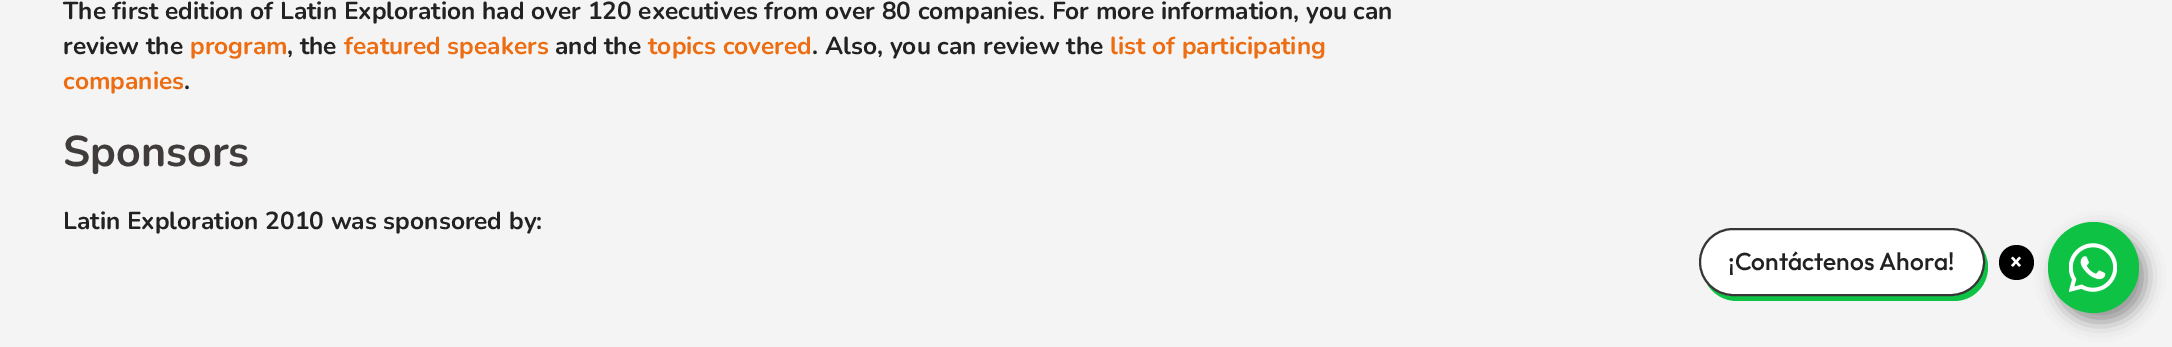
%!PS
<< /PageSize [2172 347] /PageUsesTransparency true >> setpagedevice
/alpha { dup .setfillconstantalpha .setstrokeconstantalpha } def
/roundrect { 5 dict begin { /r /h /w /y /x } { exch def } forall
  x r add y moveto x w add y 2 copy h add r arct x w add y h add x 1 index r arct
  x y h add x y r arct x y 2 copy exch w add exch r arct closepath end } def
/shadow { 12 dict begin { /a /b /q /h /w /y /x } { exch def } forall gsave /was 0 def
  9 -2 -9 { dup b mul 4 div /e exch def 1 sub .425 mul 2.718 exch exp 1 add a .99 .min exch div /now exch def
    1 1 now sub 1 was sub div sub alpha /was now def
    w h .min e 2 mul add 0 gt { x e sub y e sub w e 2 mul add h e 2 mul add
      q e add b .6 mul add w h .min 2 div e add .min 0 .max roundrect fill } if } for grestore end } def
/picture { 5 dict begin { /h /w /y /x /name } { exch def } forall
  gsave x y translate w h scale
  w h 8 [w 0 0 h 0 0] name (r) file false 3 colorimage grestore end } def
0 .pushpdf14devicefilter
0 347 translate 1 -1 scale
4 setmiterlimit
0.957 setgray
0 0 2172 347 rectfill
/Nunito-Bold [24.5 0 0 -24.5 0 0] selectfont
0.133 setgray
63 19 moveto (The first edition of Latin Exploration had over 120 executives from over 80 companies. For more information, you can) show
63 54 moveto (review the) show
0.929 0.427 0.071 setrgbcolor
190 54 moveto (program) show
0.133 setgray
287 54 moveto (, the) show
0.929 0.427 0.071 setrgbcolor
344 54 moveto (featured speakers) show
0.133 setgray
555 54 moveto (and the) show
0.929 0.427 0.071 setrgbcolor
648 54 moveto (topics covered) show
0.133 setgray
812 54 moveto (. Also, you can review the) show
0.929 0.427 0.071 setrgbcolor
1110 54 moveto (list of participating) show
63 89 moveto (companies) show
0.133 setgray
184 89 moveto (.) show
/Nunito-Bold [43 0 0 -43 0 0] selectfont
0.251 0.235 0.231 setrgbcolor
63 166 moveto (Sponsors) show
/Nunito-Bold [24.5 0 0 -24.5 0 0] selectfont
0.133 setgray
63 229 moveto (Latin Exploration 2010 was sponsored by:) show
0.055 0.765 0.267 setrgbcolor
newpath 1707 284 moveto 1713 294 1724 301 1737 301 curveto 1954 301 lineto 1973 301 1988 286 1988 267 curveto 1988 259 1985 252 1981 246 curveto 1983 251 1984 256 1984 262 curveto 1984 280 1969 296 1950 296 curveto 1733 296 lineto 1723 296 1714 291 1707 284 curveto closepath fill
1 setgray
1700 229 284 66 33 roundrect gsave fill grestore
0.212 setgray
2 setlinewidth
stroke
/Outfit-Medium [24.5 0 0 -24.5 0 0] selectfont
0.133 setgray
1728 270 moveto (¡Contáctenos Ahora!) show
0 setgray
2055 231 91 91 45.5 9 0.4 shadow
newpath 2016.5 262.5 17.5 0 360 arc closepath fill
1 setgray
2.3 setlinewidth
newpath 2012 257.5 moveto 2020 266 lineto 2012 266 moveto 2020 257.5 lineto stroke
0.055 0.765 0.267 setrgbcolor
newpath 2093.5 267.5 45.5 0 360 arc closepath fill
(img1.rgb) 2069 243 48 49 picture
.poppdf14devicefilter showpage
